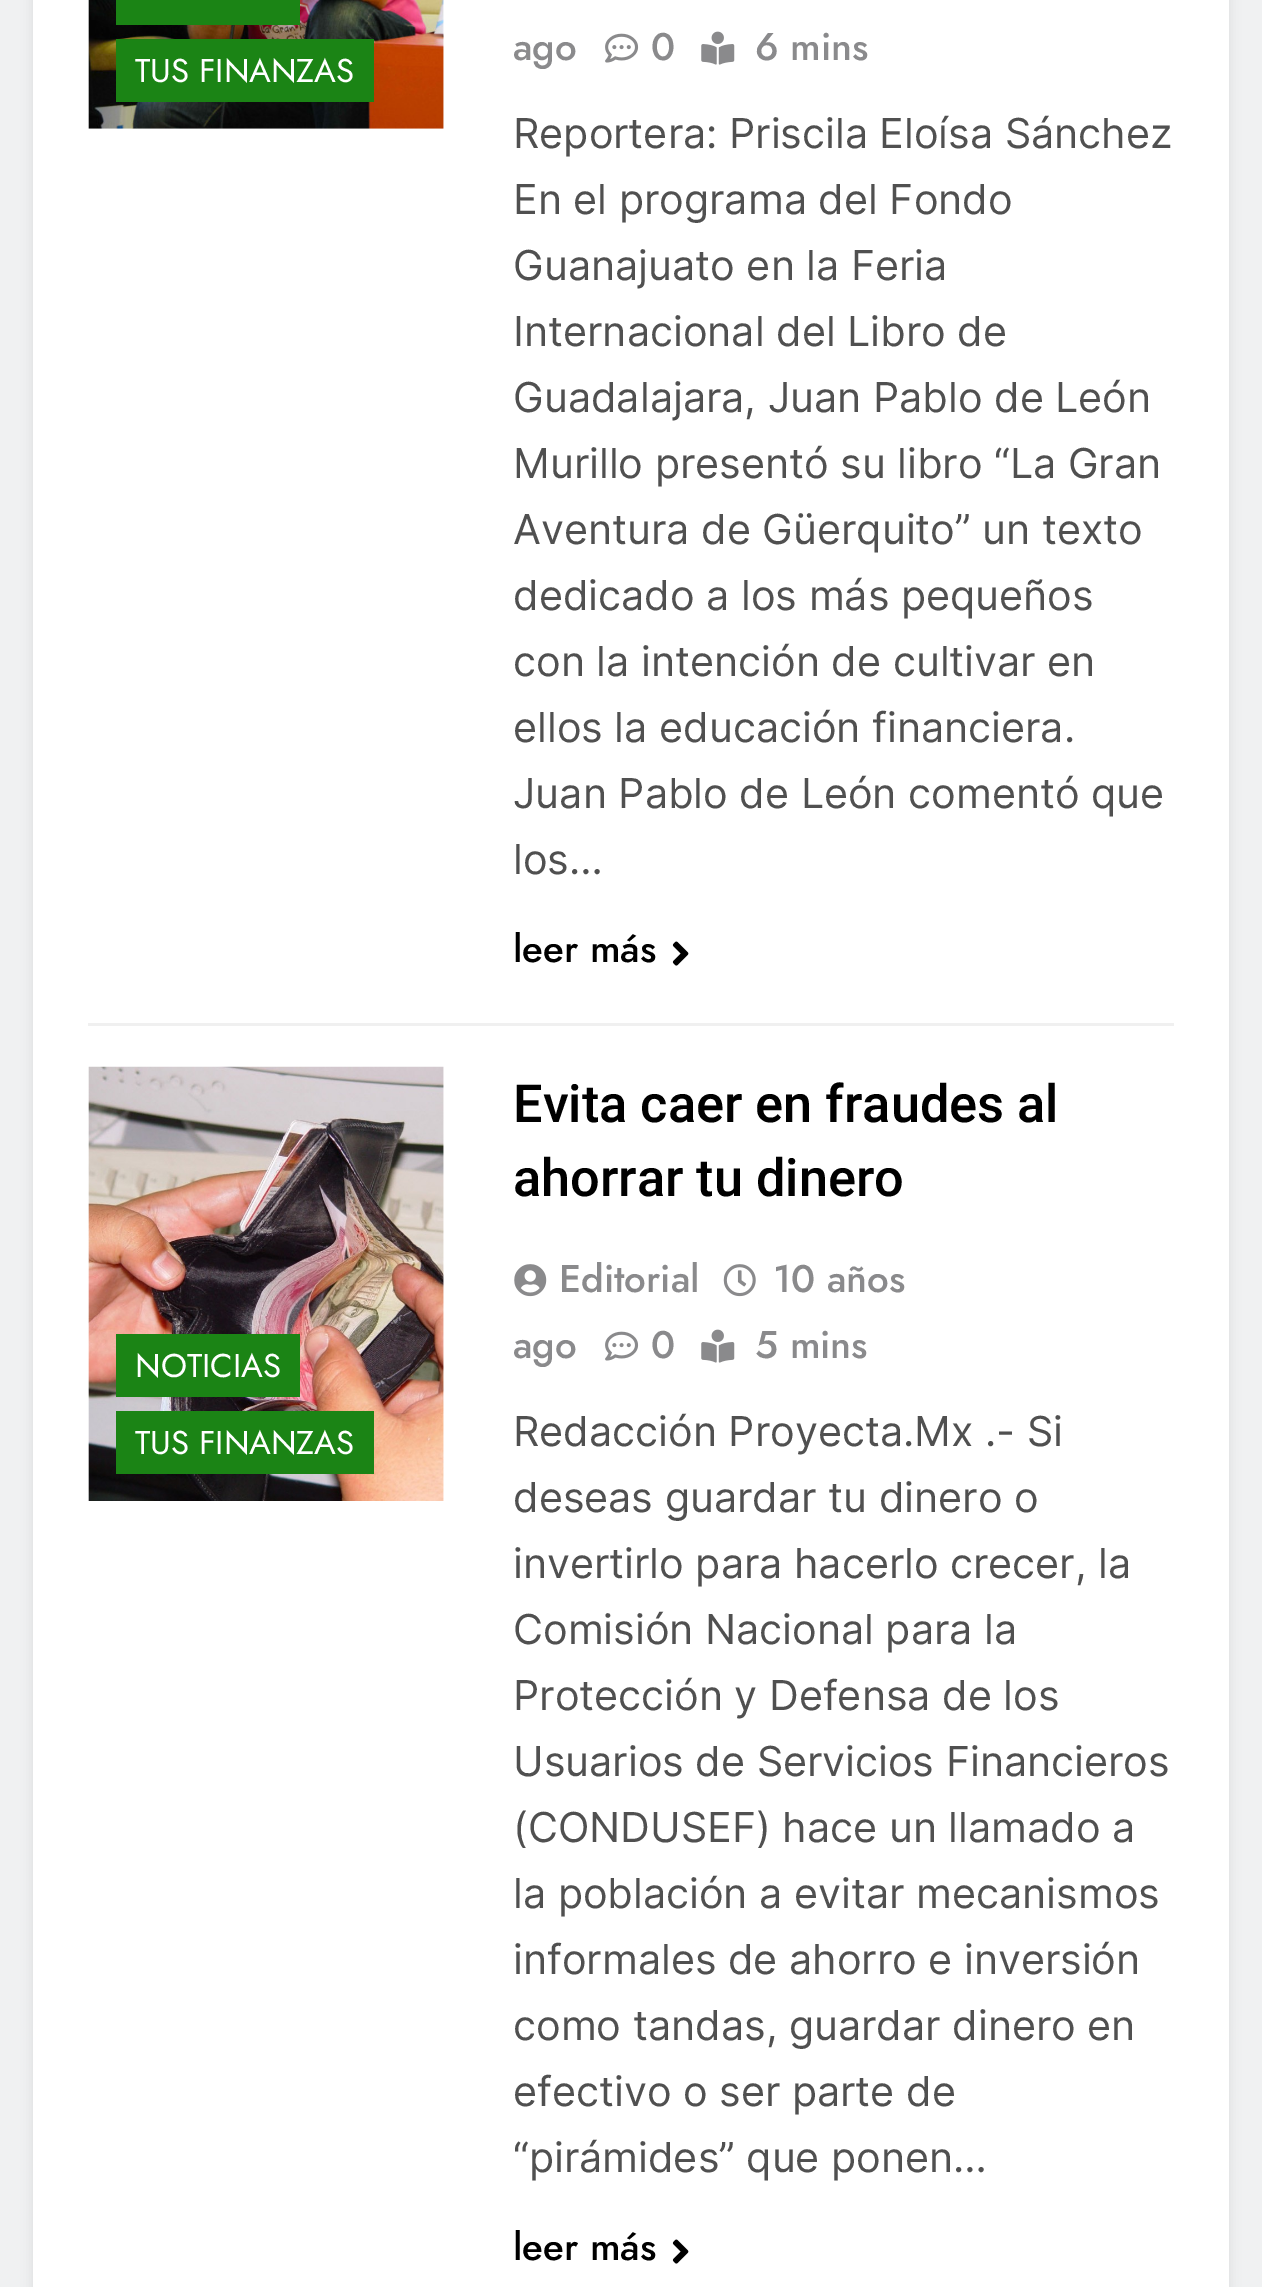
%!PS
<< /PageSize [1262 2287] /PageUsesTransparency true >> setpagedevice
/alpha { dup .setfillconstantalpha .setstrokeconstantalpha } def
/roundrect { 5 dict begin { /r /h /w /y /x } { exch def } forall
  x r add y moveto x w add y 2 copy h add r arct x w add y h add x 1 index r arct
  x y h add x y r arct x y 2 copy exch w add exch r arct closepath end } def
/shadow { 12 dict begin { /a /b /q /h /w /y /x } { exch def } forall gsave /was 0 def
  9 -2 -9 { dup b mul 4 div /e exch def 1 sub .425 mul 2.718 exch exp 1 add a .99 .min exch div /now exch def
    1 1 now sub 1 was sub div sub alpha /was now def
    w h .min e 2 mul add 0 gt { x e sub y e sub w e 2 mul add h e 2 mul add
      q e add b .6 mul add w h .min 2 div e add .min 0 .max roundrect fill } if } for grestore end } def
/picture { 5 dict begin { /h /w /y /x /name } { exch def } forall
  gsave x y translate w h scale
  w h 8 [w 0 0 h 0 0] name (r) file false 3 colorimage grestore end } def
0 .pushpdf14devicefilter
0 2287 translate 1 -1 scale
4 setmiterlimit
0.941 0.945 0.949 setrgbcolor
0 0 1262 2287 rectfill
0 setgray
33 -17 1196 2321 0 5.5 0.08 shadow
1 setgray
33 0 1196 2287 rectfill
0.941 setgray
88 1023 1086 3 rectfill
(img1.rgb) 88 0 356 129 picture
0.106 0.518 0.082 setrgbcolor
116 0 184 25 rectfill
116 39 258 63 rectfill
/Jost-Regular [33 0 0 -33 0 0] selectfont
1 setgray
135 82 moveto (TUS FINANZAS) show
/Jost-Medium [38.5 0 0 -38.5 0 0] selectfont
0.541 0.541 0.549 setrgbcolor
513 60 moveto (ago) show
(img2.rgb) 605 33 34 30 picture
651 60 moveto (0) show
(img3.rgb) 701 31 34 34 picture
755 60 moveto (6 mins) show
/Inter-Regular [41.25 0 0 -41.25 0 0] selectfont
0.314 setgray
513 148 moveto (Reportera: Priscila Eloísa Sánchez) show
513 214 moveto (En el programa del Fondo) show
513 280 moveto (Guanajuato en la Feria) show
513 346 moveto (Internacional del Libro de) show
513 412 moveto (Guadalajara, Juan Pablo de León) show
513 478 moveto (Murillo presentó su libro “La Gran) show
513 544 moveto (Aventura de Güerquito” un texto) show
513 610 moveto (dedicado a los más pequeños) show
513 676 moveto (con la intención de cultivar en) show
513 742 moveto (ellos la educación financiera.) show
513 808 moveto (Juan Pablo de León comentó que) show
513 874 moveto (los…) show
/Jost-Medium [38.5 0 0 -38.5 0 0] selectfont
0 setgray
513 962 moveto (leer más) show
(img4.rgb) 672 941 17 25 picture
(img5.rgb) 88 1066 356 435 picture
0.106 0.518 0.082 setrgbcolor
116 1334 184 63 rectfill
/Jost-Regular [33 0 0 -33 0 0] selectfont
1 setgray
135 1377 moveto (NOTICIAS) show
0.106 0.518 0.082 setrgbcolor
116 1411 258 63 rectfill
1 setgray
135 1454 moveto (TUS FINANZAS) show
/Roboto-Medium [52.25 0 0 -52.25 0 0] selectfont
0 setgray
513 1122 moveto (Evita caer en fraudes al) show
513 1196 moveto (ahorrar tu dinero) show
(img6.rgb) 514 1264 33 33 picture
/Jost-Medium [38.5 0 0 -38.5 0 0] selectfont
0.541 0.541 0.549 setrgbcolor
559 1292 moveto (Editorial) show
(img7.rgb) 723 1264 33 33 picture
773 1292 moveto (10 años) show
513 1358 moveto (ago) show
(img2.rgb) 605 1331 34 30 picture
651 1358 moveto (0) show
(img3.rgb) 701 1329 34 34 picture
755 1358 moveto (5 mins) show
/Inter-Regular [41.25 0 0 -41.25 0 0] selectfont
0.314 setgray
513 1446 moveto (Redacción Proyecta.Mx .- Si) show
513 1512 moveto (deseas guardar tu dinero o) show
513 1578 moveto (invertirlo para hacerlo crecer, la) show
513 1644 moveto (Comisión Nacional para la) show
513 1710 moveto (Protección y Defensa de los) show
513 1776 moveto (Usuarios de Servicios Financieros) show
513 1842 moveto (\(CONDUSEF\) hace un llamado a) show
513 1908 moveto (la población a evitar mecanismos) show
513 1974 moveto (informales de ahorro e inversión) show
513 2040 moveto (como tandas, guardar dinero en) show
513 2106 moveto (efectivo o ser parte de) show
513 2172 moveto (“pirámides” que ponen…) show
/Jost-Medium [38.5 0 0 -38.5 0 0] selectfont
0 setgray
513 2260 moveto (leer más) show
(img4.rgb) 672 2239 17 25 picture
.poppdf14devicefilter showpage
